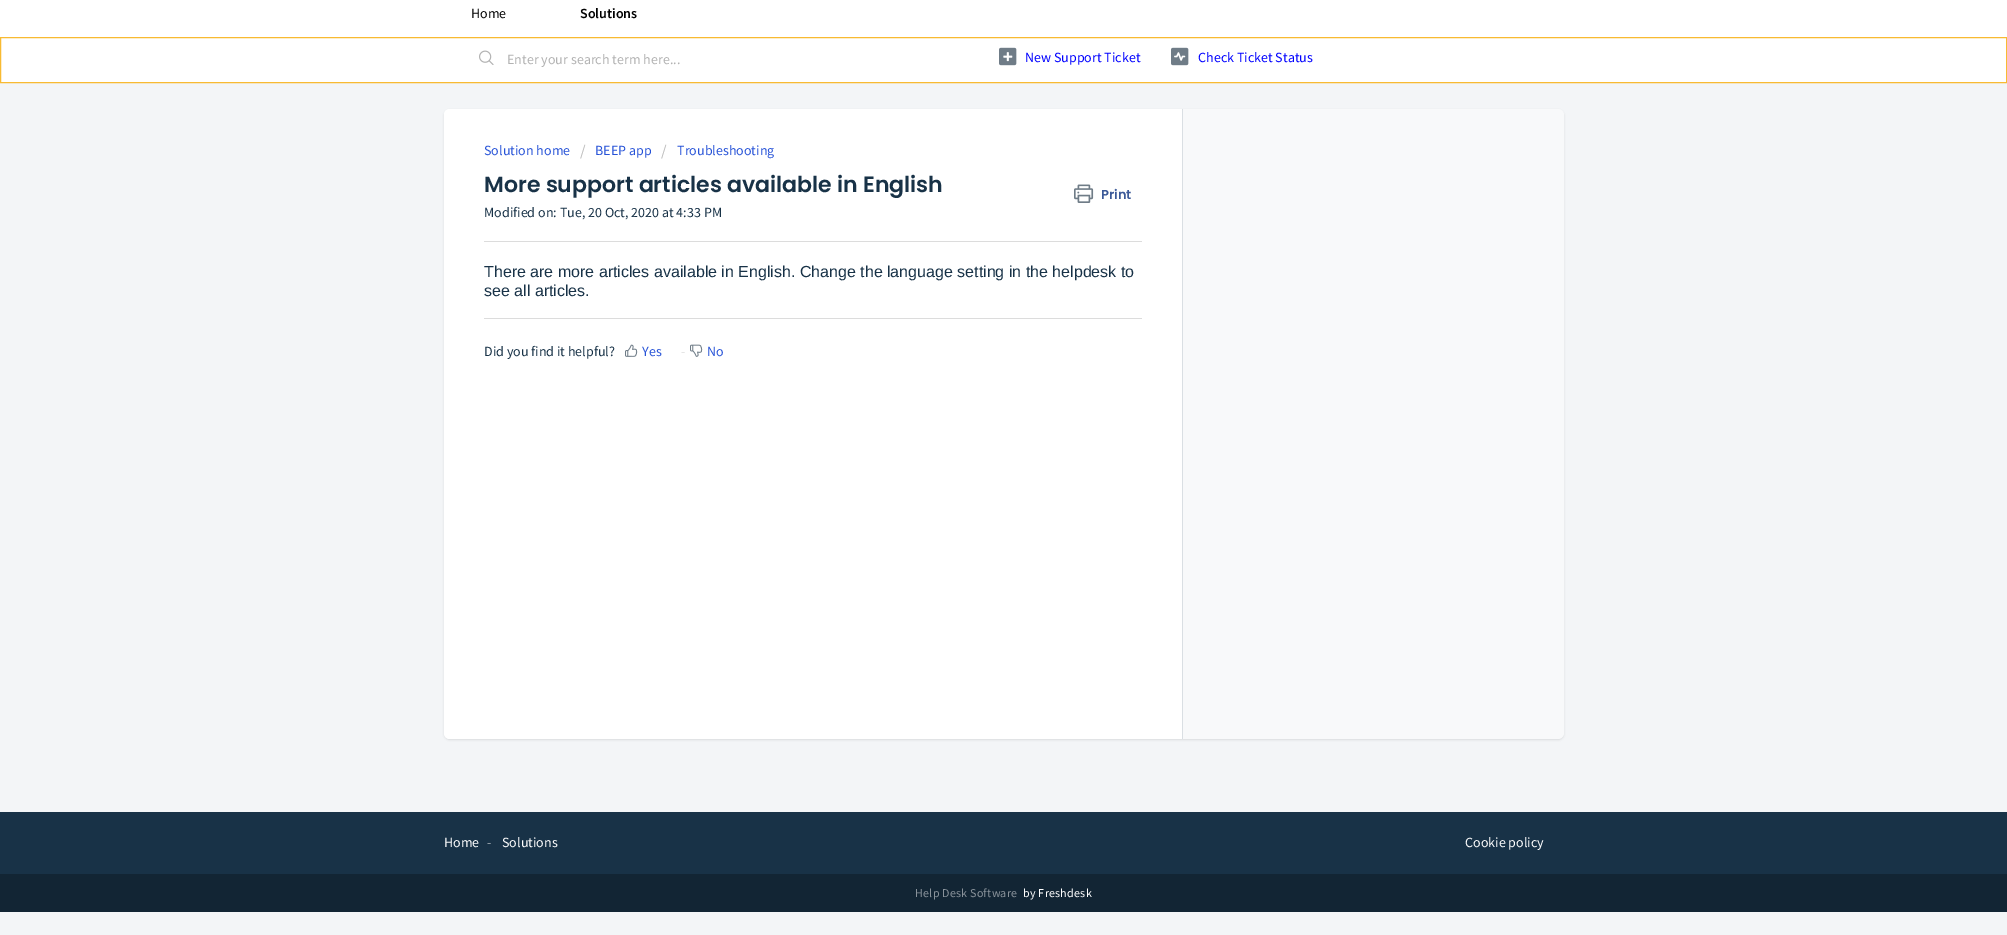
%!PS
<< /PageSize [2007 935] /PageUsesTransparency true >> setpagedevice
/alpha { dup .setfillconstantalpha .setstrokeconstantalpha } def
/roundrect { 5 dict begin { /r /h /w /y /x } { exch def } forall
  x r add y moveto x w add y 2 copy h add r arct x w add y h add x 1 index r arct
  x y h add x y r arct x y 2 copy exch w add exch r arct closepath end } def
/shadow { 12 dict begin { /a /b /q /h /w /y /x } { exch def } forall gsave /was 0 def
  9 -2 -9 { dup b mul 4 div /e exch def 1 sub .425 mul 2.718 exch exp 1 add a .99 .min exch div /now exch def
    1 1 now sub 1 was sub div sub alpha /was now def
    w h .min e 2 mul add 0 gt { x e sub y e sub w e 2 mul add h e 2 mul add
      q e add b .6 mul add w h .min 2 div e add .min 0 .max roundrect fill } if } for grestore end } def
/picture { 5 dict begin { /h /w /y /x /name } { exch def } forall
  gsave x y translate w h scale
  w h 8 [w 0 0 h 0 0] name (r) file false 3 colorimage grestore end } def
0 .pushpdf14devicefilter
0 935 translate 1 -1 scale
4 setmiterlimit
0.953 0.961 0.969 setrgbcolor
0 0 2007 935 rectfill
1 setgray
0 0 2007 37 rectfill
/SourceSansPro-Regular [14 0 0 -14 0 0] selectfont
0 setgray
471 18 moveto (Home) show
/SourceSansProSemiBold-SemiBold [14 0 0 -14 0 0] selectfont
580 18 moveto (Solutions) show
1 setgray
newpath 0.5 37.5 moveto 2006.5 37.5 lineto 2006.5 82.5 lineto 0.5 82.5 lineto closepath gsave fill grestore
0.973 0.729 0.196 setrgbcolor
stroke
(img1.rgb) 479 50 15 15 picture
/SourceSansPro-Regular [14 0 0 -14 0 0] selectfont
0.698 setgray
507 64 moveto (Enter your search term here...) show
(img2.rgb) 999 47 18 19 picture
0 0 1 setrgbcolor
1025 62 moveto (New Support Ticket) show
(img3.rgb) 1171 47 18 19 picture
1198 62 moveto (Check Ticket Status) show
0.247 0.247 0.267 setrgbcolor
444 110 1120 630 6 1 0.15 shadow
0.973 0.976 0.98 setrgbcolor
444 109 1120 630 6 roundrect fill
1 setgray
newpath 450 109 moveto 1183 109 lineto 1183 739 lineto 450 739 lineto 446.5 739 444 736.5 444 733 curveto 444 115 lineto 444 111.5 446.5 109 450 109 curveto closepath fill
0.855 0.875 0.89 setrgbcolor
1182 109 1 630 rectfill
0.153 0.325 0.843 setrgbcolor
484 155 moveto (Solution home) show
/SourceSansPro-Regular [16 0 0 -16 0 0] selectfont
0.733 setgray
580 156 moveto (/) show
/SourceSansPro-Regular [14 0 0 -14 0 0] selectfont
0.153 0.325 0.843 setrgbcolor
595 155 moveto (BEEP app) show
/SourceSansPro-Regular [16 0 0 -16 0 0] selectfont
0.733 setgray
661 156 moveto (/) show
/SourceSansPro-Regular [14 0 0 -14 0 0] selectfont
0.153 0.325 0.843 setrgbcolor
677 155 moveto (Troubleshooting) show
/Poppins-SemiBold [22 0 0 -22 0 0] selectfont
0.094 0.196 0.278 setrgbcolor
484 192 moveto (More support articles available in English) show
(img4.rgb) 1074 184 20 19 picture
/Poppins-SemiBold [13 0 0 -13 0 0] selectfont
0.231 0.349 0.596 setrgbcolor
1101 199 moveto (Print) show
/SourceSansPro-Regular [14 0 0 -14 0 0] selectfont
0.094 0.196 0.278 setrgbcolor
484 217 moveto (Modified on: Tue, 20 Oct, 2020 at 4:33 PM) show
0.863 setgray
484 241 658 1 rectfill
/LiberationSans-Regular [16 0 0 -16 0 0] selectfont
0.094 0.196 0.278 setrgbcolor
484 277 moveto (There are more articles available in English. Change the language setting in the helpdesk to) show
484 296 moveto (see all articles.) show
0.863 setgray
484 318 658 1 rectfill
/SourceSansPro-Regular [14 0 0 -14 0 0] selectfont
0.094 0.196 0.278 setrgbcolor
484 356 moveto (Did you find it helpful?) show
(img5.rgb) 625 344 13 13 picture
0.153 0.325 0.843 setrgbcolor
642 356 moveto (Yes) show
0.898 setgray
681 356 moveto (-) show
(img6.rgb) 690 344 13 13 picture
0.153 0.325 0.843 setrgbcolor
707 356 moveto (No) show
0.094 0.196 0.278 setrgbcolor
0 812 2007 62 rectfill
1 setgray
444 847 moveto (Home) show
0.549 0.6 0.639 setrgbcolor
487 847 moveto (-) show
1 setgray
502 847 moveto (Solutions) show
1465 847 moveto (Cookie policy) show
0.071 0.145 0.204 setrgbcolor
0 874 2007 38 rectfill
/SourceSansPro-Regular [12 0 0 -12 0 0] selectfont
0.537 0.573 0.604 setrgbcolor
915 897 moveto 0.25 0 (Help Desk Software) ashow
1 setgray
1023 897 moveto 0.25 0 (by Freshdesk) ashow
.poppdf14devicefilter showpage
